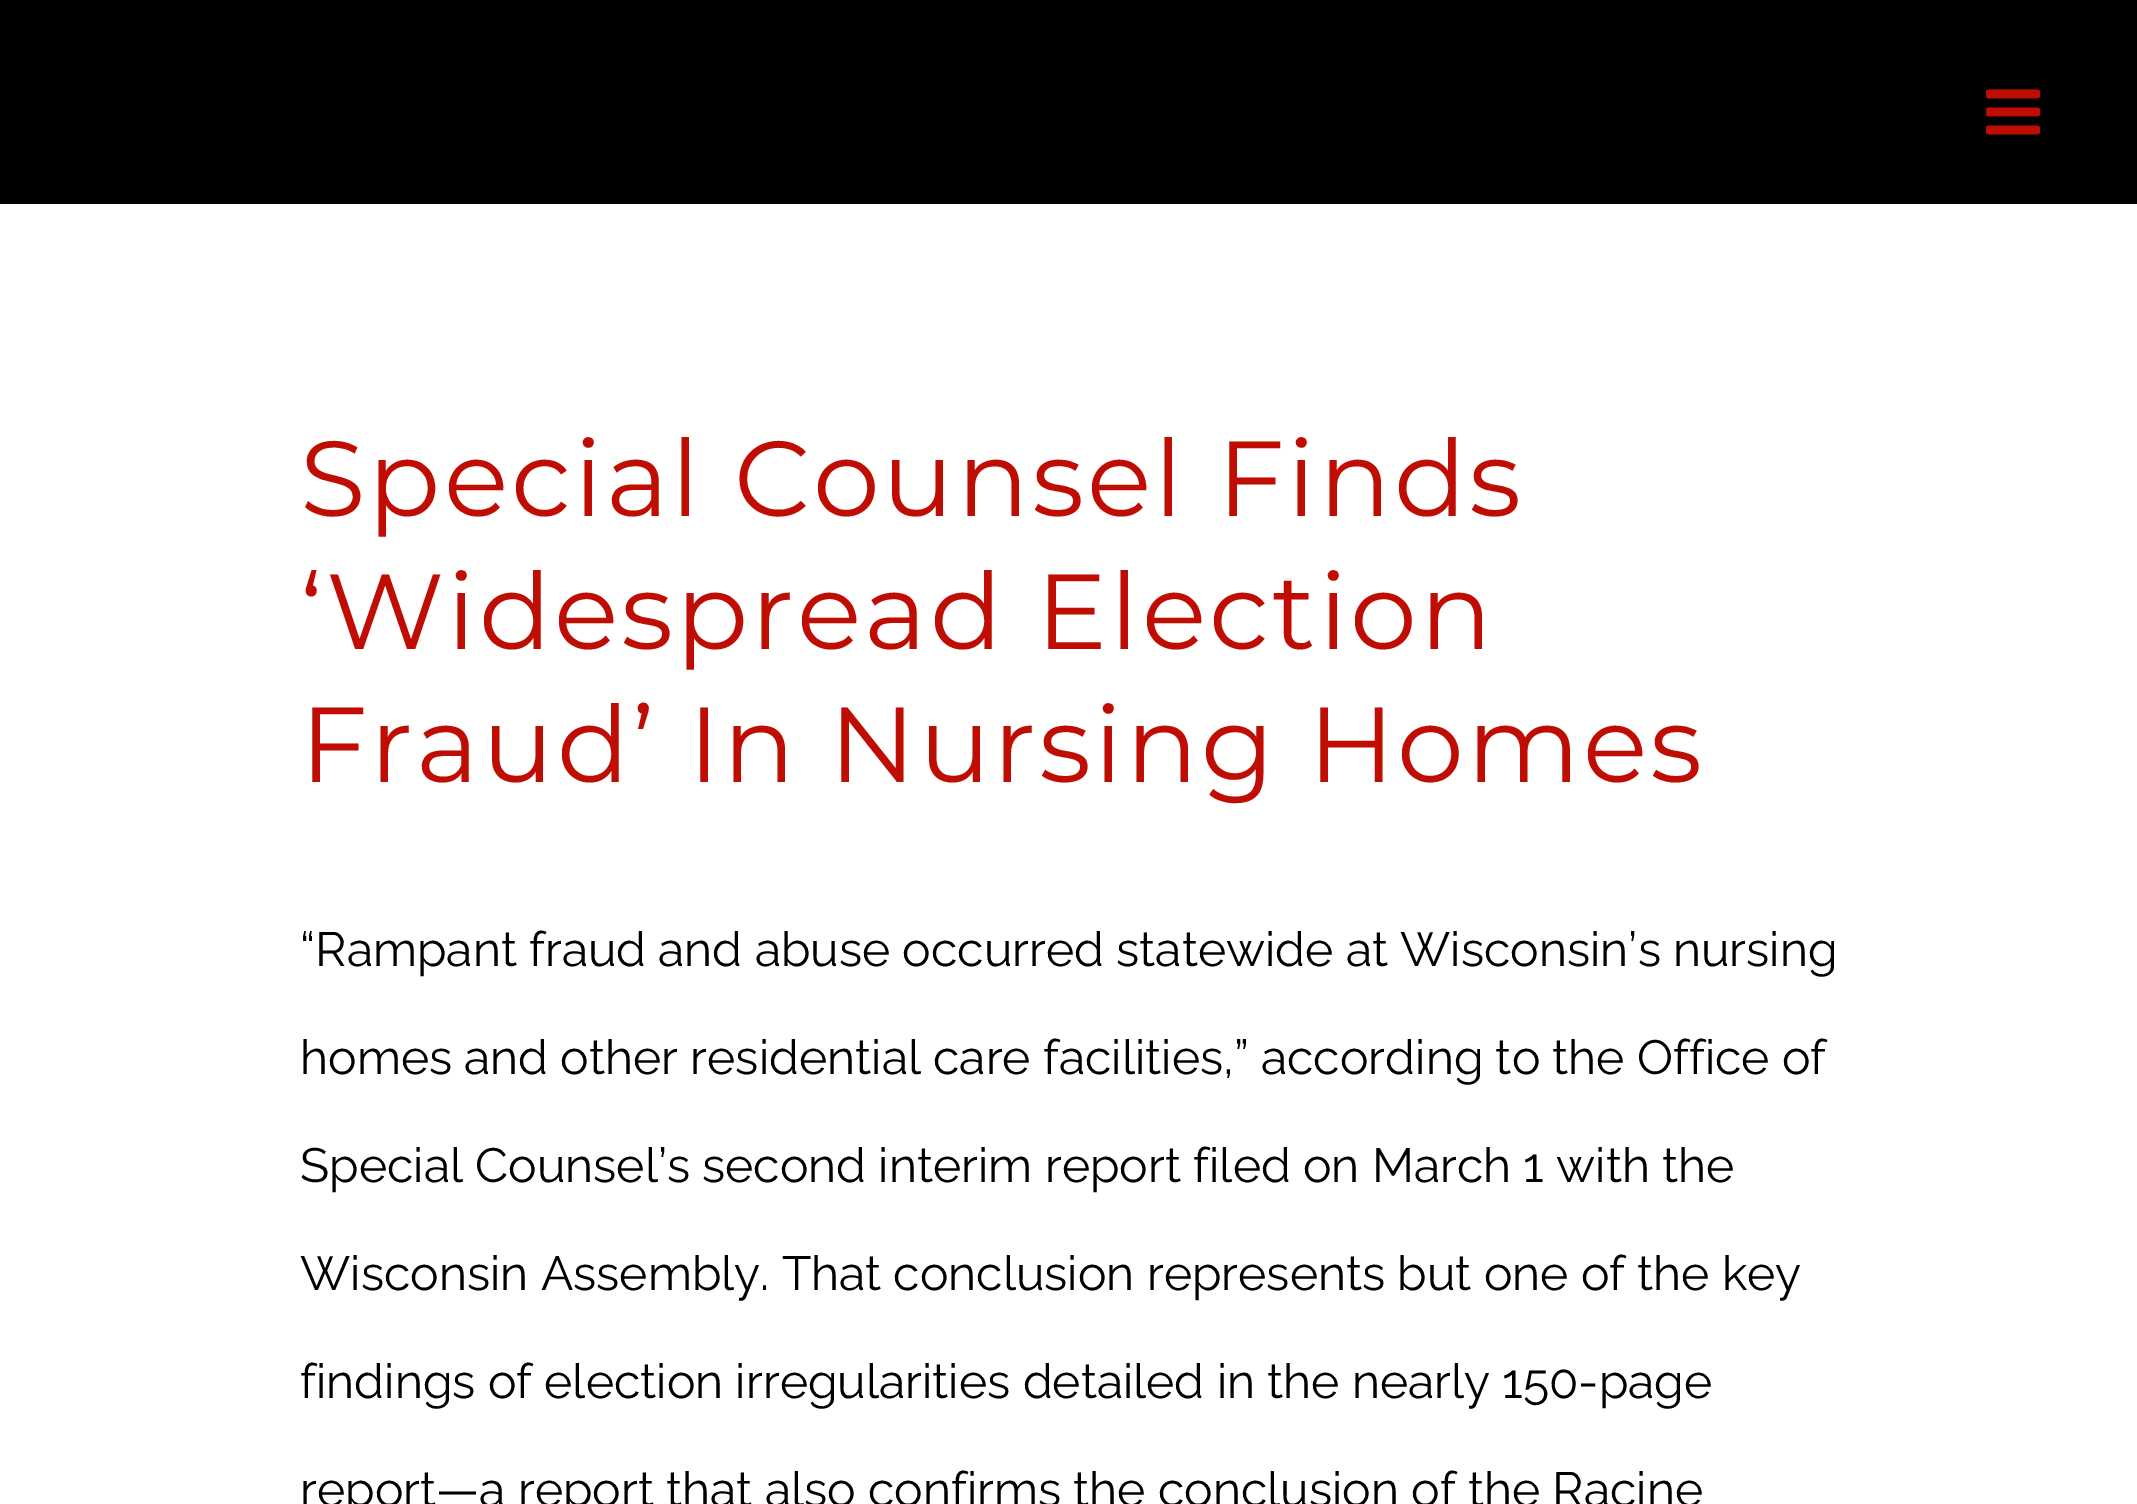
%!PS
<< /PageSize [2137 1504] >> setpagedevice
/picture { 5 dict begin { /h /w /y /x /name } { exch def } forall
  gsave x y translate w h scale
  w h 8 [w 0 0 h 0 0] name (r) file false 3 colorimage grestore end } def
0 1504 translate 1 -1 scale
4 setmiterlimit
1 setgray
0 0 2137 1504 rectfill
0 setgray
0 0 2137 204 rectfill
(img1.rgb) 1986 89 54 46 picture
/Montserrat-Thin [106.5 0 0 -106.5 0 0] selectfont
0.749 0.051 0.012 setrgbcolor
300 516 moveto 3 0 (Special Counsel Finds) ashow
300 649 moveto 3 0 (‘Widespread Election) ashow
300 782 moveto 3 0 (Fraud’ In Nursing Homes) ashow
/Raleway-Regular [48 0 0 -48 0 0] selectfont
0 setgray
300 966 moveto (“Rampant fraud and abuse occurred statewide at Wisconsin’s nursing) show
300 1074 moveto (homes and other residential care facilities,” according to the Office of) show
300 1182 moveto (Special Counsel’s second interim report filed on March 1 with the) show
300 1290 moveto (Wisconsin Assembly. That conclusion represents but one of the key) show
300 1398 moveto (findings of election irregularities detailed in the nearly 150-page) show
300 1506 moveto (report—a report that also confirms the conclusion of the Racine) show
showpage
